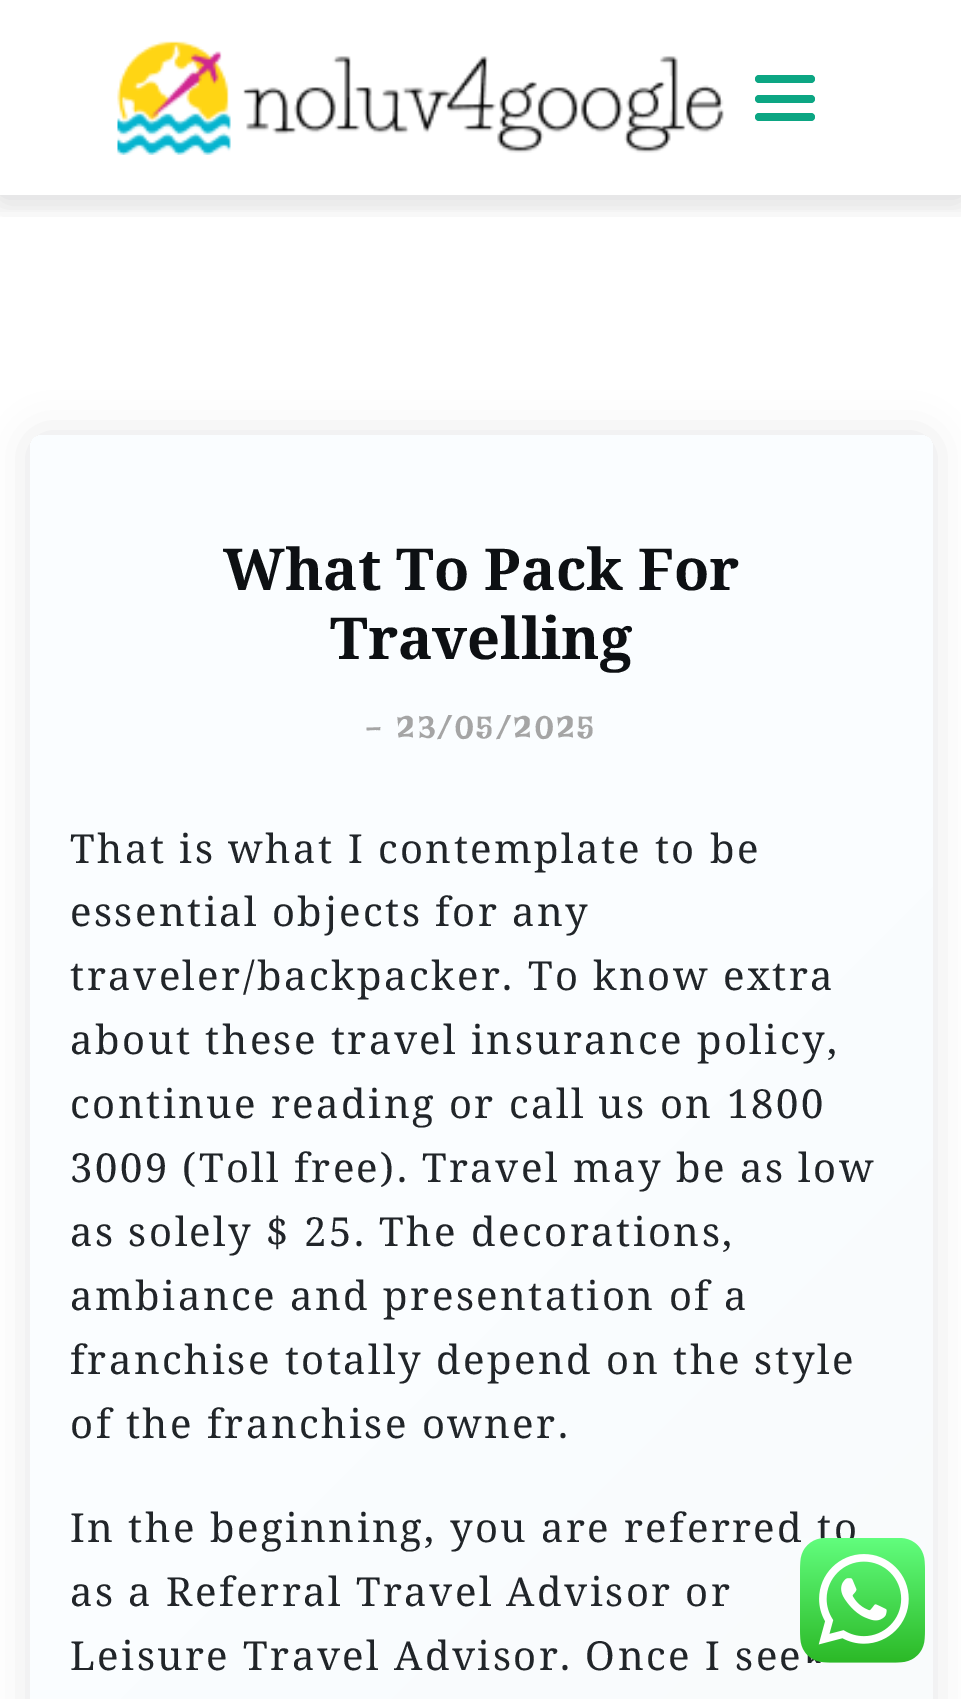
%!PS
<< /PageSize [961 1699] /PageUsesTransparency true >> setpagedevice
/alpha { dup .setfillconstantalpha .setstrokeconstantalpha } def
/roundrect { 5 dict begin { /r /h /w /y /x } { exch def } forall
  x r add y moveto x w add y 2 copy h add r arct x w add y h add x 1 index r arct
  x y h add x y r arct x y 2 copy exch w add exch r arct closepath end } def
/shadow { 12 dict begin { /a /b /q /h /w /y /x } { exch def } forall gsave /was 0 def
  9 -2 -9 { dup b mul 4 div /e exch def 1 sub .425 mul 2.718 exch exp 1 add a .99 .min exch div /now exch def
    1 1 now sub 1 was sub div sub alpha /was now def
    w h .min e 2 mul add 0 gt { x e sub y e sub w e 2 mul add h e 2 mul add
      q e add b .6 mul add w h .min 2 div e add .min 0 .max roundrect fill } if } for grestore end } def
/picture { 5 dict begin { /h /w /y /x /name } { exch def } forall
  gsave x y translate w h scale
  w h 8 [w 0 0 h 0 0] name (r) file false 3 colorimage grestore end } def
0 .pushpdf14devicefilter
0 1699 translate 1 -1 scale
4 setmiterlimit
1 setgray
0 0 961 1699 rectfill
gsave
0 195 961 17 rectclip
0.067 0.067 0.102 setrgbcolor
0 0 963 195 0 20 0.1 shadow
grestore
gsave
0 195 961 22 rectclip
0 setgray
0 5 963 195 0 25 0.08 shadow
grestore
(img1.rgb) 117 41 607 114 picture
0.047 0.651 0.514 setrgbcolor
755 75 60 8 4 roundrect fill
755 95 60 8 4 roundrect fill
755 113 60 8 4 roundrect fill
0.067 0.067 0.102 setrgbcolor
30 435 903 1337 13 20 0.1 shadow
gsave 30 435 903 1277 13 roundrect clip newpath
<< /ShadingType 2 /ColorSpace /DeviceRGB /Coords [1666 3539 -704 1169] /Extend [true true] /Function << /FunctionType 3 /Domain [0 1] /Functions [<< /FunctionType 2 /Domain [0 1] /C0 [0.961 0.961 0.961] /C1 [0.98 0.992 1] /N 1 >> << /FunctionType 2 /Domain [0 1] /C0 [0.98 0.992 1] /C1 [0.98 0.992 1] /N 1 >>] /Bounds [0.74] /Encode [0 1 0 1] >> >> shfill grestore
/KohSantepheap-Bold [57.75 0 0 -57.75 0 0] selectfont
0.051 0.063 0.075 setrgbcolor
223 590 moveto (What To Pack For) show
330 659 moveto (Travelling) show
/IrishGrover-Regular [32.5 0 0 -32.5 0 0] selectfont
0.647 setgray
366 739 moveto 2.5 0 (- 23/05/2025) ashow
/NotoSerif-Regular [40 0 0 -40 0 0] selectfont
0.129 0.145 0.161 setrgbcolor
70 863 moveto 2.5 0 (That is what I contemplate to be) ashow
70 926 moveto 2.5 0 (essential objects for any) ashow
70 990 moveto 2.5 0 (traveler/backpacker. To know extra) ashow
70 1054 moveto 2.5 0 (about these travel insurance policy,) ashow
70 1118 moveto 2.5 0 (continue reading or call us on 1800) ashow
70 1182 moveto 2.5 0 (3009 \(Toll free\). Travel may be as low) ashow
70 1246 moveto 2.5 0 (as solely $ 25. The decorations,) ashow
70 1310 moveto 2.5 0 (ambiance and presentation of a) ashow
70 1374 moveto 2.5 0 (franchise totally depend on the style) ashow
70 1438 moveto 2.5 0 (of the franchise owner.) ashow
70 1542 moveto 2.5 0 (In the beginning, you are referred to) ashow
70 1606 moveto 2.5 0 (as a Referral Travel Advisor or) ashow
70 1670 moveto 2.5 0 (Leisure Travel Advisor. Once I see) ashow
(img2.rgb) 800 1538 125 125 picture
.poppdf14devicefilter showpage
